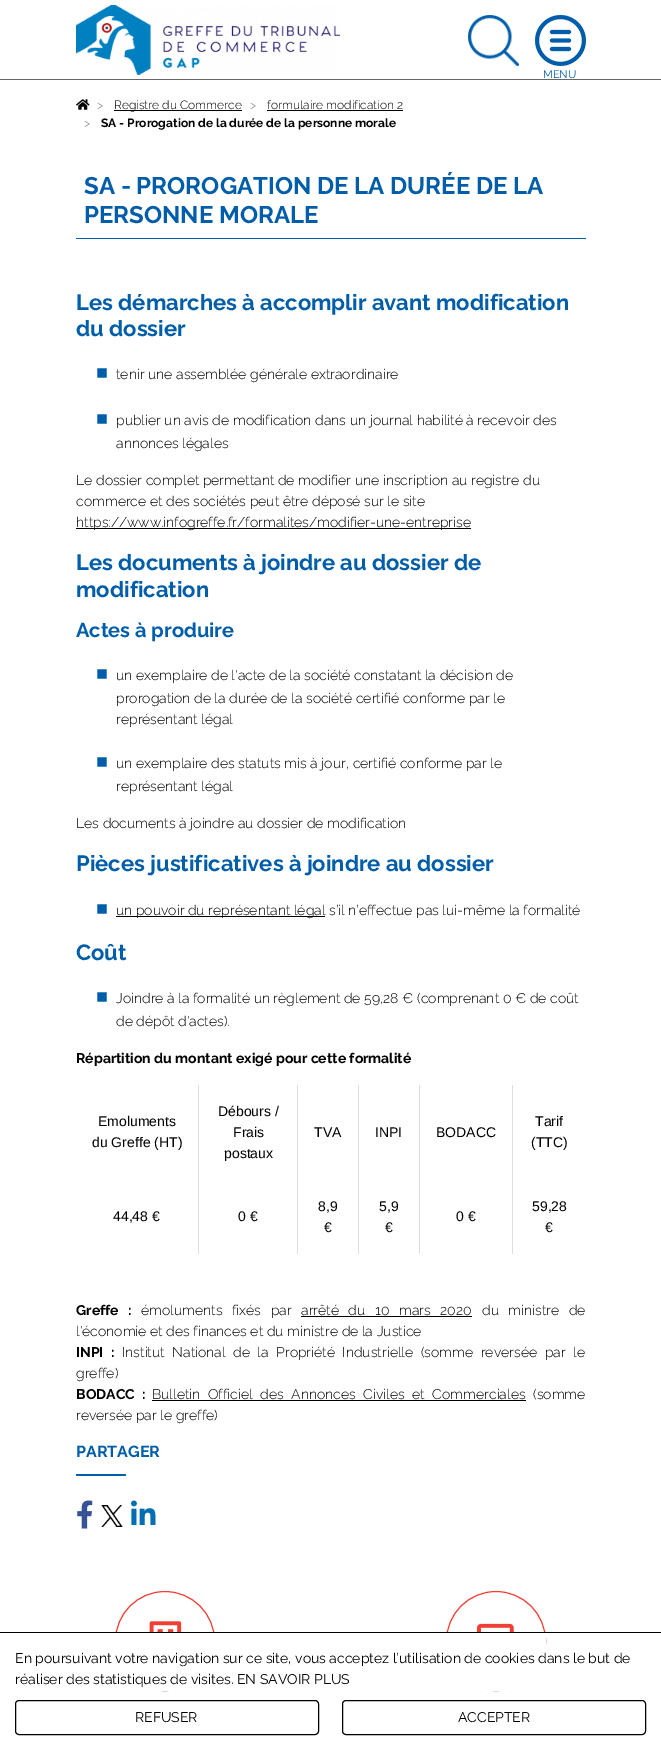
%!PS
<< /PageSize [661 1750] >> setpagedevice
/roundrect { 5 dict begin { /r /h /w /y /x } { exch def } forall
  x r add y moveto x w add y 2 copy h add r arct x w add y h add x 1 index r arct
  x y h add x y r arct x y 2 copy exch w add exch r arct closepath end } def
/picture { 5 dict begin { /h /w /y /x /name } { exch def } forall
  gsave x y translate w h scale
  w h 8 [w 0 0 h 0 0] name (r) file false 3 colorimage grestore end } def
0 1750 translate 1 -1 scale
4 setmiterlimit
1 setgray
0 0 661 1750 rectfill
0.4 setgray
0 79 661 1 rectfill
(img1.rgb) 76 5 264 70 picture
(img2.rgb) 468 15 51 51 picture
(img3.rgb) 535 15 51 51 picture
/Raleway-Regular [11 0 0 -11 0 0] selectfont
0 0.365 0.667 setrgbcolor
543 78 moveto (MENU) show
(img4.rgb) 76 99 14 11 picture
/Raleway-Light [12 0 0 -12 0 0] selectfont
0.424 0.459 0.49 setrgbcolor
97 109 moveto (>) show
0 setgray
114 110 128 1 rectfill
114 109 moveto (Registre du Commerce) show
0.424 0.459 0.49 setrgbcolor
250 109 moveto (>) show
0 setgray
267 109 moveto (formulaire modification 2) show
267 110 136 1 rectfill
0.424 0.459 0.49 setrgbcolor
84 127 moveto (>) show
/Raleway-Bold [12 0 0 -12 0 0] selectfont
0 setgray
101 127 moveto (SA - Prorogation de la durée de la personne morale) show
0 0.365 0.667 setrgbcolor
76 238 510 1 rectfill
/Raleway-Bold [24 0 0 -24 0 0] selectfont
84 194 moveto (SA - PROROGATION DE LA DURÉE DE LA) show
84 223 moveto (PERSONNE MORALE) show
/Raleway-Bold [22 0 0 -22 0 0] selectfont
76 310 moveto (Les démarches à accomplir avant modification) show
76 336 moveto (du dossier) show
/LiberationSans-Regular [20 0 0 -20 0 0] selectfont
96 379 moveto (■) show
/Raleway-Light [14 0 0 -14 0 0] selectfont
0 setgray
116 379 moveto (tenir une assemblée générale extraordinaire) show
/LiberationSans-Regular [20 0 0 -20 0 0] selectfont
0 0.365 0.667 setrgbcolor
96 425 moveto (■) show
/Raleway-Light [14 0 0 -14 0 0] selectfont
0 setgray
116 425 moveto (publier un avis de modification dans un journal habilité à recevoir des) show
116 448 moveto (annonces légales) show
76 485 moveto (Le dossier complet permettant de modifier une inscription au registre du) show
76 506 moveto (commerce et des sociétés peut être déposé sur le site) show
76 528 395 1 rectfill
76 527 moveto (https://www.infogreffe.fr/formalites/modifier-une-entreprise) show
/Raleway-Bold [22 0 0 -22 0 0] selectfont
0 0.365 0.667 setrgbcolor
76 570 moveto (Les documents à joindre au dossier de) show
76 597 moveto (modification) show
/Raleway-Bold [20 0 0 -20 0 0] selectfont
76 637 moveto (Actes à produire) show
/LiberationSans-Regular [20 0 0 -20 0 0] selectfont
96 680 moveto (■) show
/Raleway-Light [14 0 0 -14 0 0] selectfont
0 setgray
116 680 moveto (un exemplaire de l'acte de la société constatant la décision de) show
116 703 moveto (prorogation de la durée de la société certifié conforme par le) show
116 724 moveto (représentant légal) show
/LiberationSans-Regular [20 0 0 -20 0 0] selectfont
0 0.365 0.667 setrgbcolor
96 768 moveto (■) show
/Raleway-Light [14 0 0 -14 0 0] selectfont
0 setgray
116 768 moveto (un exemplaire des statuts mis à jour, certifié conforme par le) show
116 791 moveto (représentant légal) show
76 828 moveto (Les documents à joindre au dossier de modification) show
/Raleway-Bold [22 0 0 -22 0 0] selectfont
0 0.365 0.667 setrgbcolor
76 871 moveto (Pièces justificatives à joindre au dossier) show
/LiberationSans-Regular [20 0 0 -20 0 0] selectfont
96 915 moveto (■) show
0 setgray
116 916 209 1 rectfill
/Raleway-Light [14 0 0 -14 0 0] selectfont
116 915 moveto (un pouvoir du représentant légal s’il n’effectue pas lui-même la formalité) show
/Raleway-Bold [22 0 0 -22 0 0] selectfont
0 0.365 0.667 setrgbcolor
76 960 moveto (Coût) show
/LiberationSans-Regular [20 0 0 -20 0 0] selectfont
96 1003 moveto (■) show
/Raleway-Light [14 0 0 -14 0 0] selectfont
0 setgray
116 1003 moveto (Joindre à la formalité un règlement de 59,28 € \(comprenant 0 € de coût) show
116 1026 moveto (de dépôt d'actes\).) show
/Raleway-Bold [14 0 0 -14 0 0] selectfont
76 1063 moveto (Répartition du montant exigé pour cette formalité) show
0.867 setgray
198 1085 1 169 rectfill
/LiberationSans-Regular [14 0 0 -14 0 0] selectfont
0 setgray
98 1126 moveto (Emoluments) show
92 1147 moveto (du Greffe \(HT\)) show
0.867 setgray
297 1085 1 169 rectfill
0 setgray
218 1116 moveto (Débours /) show
233 1137 moveto (Frais) show
224 1158 moveto (postaux) show
0.867 setgray
358 1085 1 169 rectfill
0 setgray
314 1137 moveto (TVA) show
0.867 setgray
419 1085 1 169 rectfill
0 setgray
375 1137 moveto (INPI) show
0.867 setgray
512 1085 1 169 rectfill
0 setgray
436 1137 moveto (BODACC) show
535 1126 moveto (Tarif) show
531 1147 moveto (\(TTC\)) show
113 1221 moveto (44,48 €) show
238 1221 moveto (0 €) show
318 1211 moveto (8,9) show
324 1232 moveto (€) show
379 1211 moveto (5,9) show
385 1232 moveto (€) show
456 1221 moveto (0 €) show
532 1211 moveto (59,28) show
545 1232 moveto (€) show
/Raleway-Bold [14 0 0 -14 0 0] selectfont
76 1315 moveto 6 0 32 (Greffe :) widthshow
/Raleway-Light [14 0 0 -14 0 0] selectfont
141 1315 moveto 6 0 32 (émoluments fixés par) widthshow
301 1315 moveto 6 0 32 (arrêté du 10 mars 2020) widthshow
301 1316 171 1 rectfill
482 1315 moveto 6 0 32 (du ministre de) widthshow
76 1336 moveto (l'économie et des finances et du ministre de la Justice) show
/Raleway-Bold [14 0 0 -14 0 0] selectfont
76 1357 moveto 4 0 32 (INPI :) widthshow
/Raleway-Light [14 0 0 -14 0 0] selectfont
122 1357 moveto 4 0 32 (Institut National de la Propriété Industrielle \(somme reversée par le) widthshow
76 1378 moveto (greffe\)) show
/Raleway-Bold [14 0 0 -14 0 0] selectfont
76 1399 moveto 4 0 32 (BODACC :) widthshow
/Raleway-Light [14 0 0 -14 0 0] selectfont
152 1399 moveto 4 0 32 (Bulletin Officiel des Annonces Civiles et Commerciales) widthshow
152 1400 374 1 rectfill
533 1399 moveto (\(somme) show
76 1420 moveto (reversée par le greffe\)) show
/Raleway-Bold [16 0 0 -16 0 0] selectfont
0 0.365 0.667 setrgbcolor
76 1457 moveto (PARTAGER) show
76 1474 50 2 1 roundrect fill
(img5.rgb) 77 1500 16 29 picture
(img6.rgb) 101 1505 22 22 picture
(img7.rgb) 131 1500 25 25 picture
0.941 0.247 0.208 setrgbcolor
newpath 165 1641 49.5 0 360 arc closepath stroke
(img8.rgb) 149 1621 33 11 picture
newpath 496 1641 49.5 0 360 arc closepath stroke
(img9.rgb) 477 1623 37 9 picture
1 setgray
115 1633 431 58 rectfill
0 setgray
0 1632 661 1 rectfill
/Raleway-Regular [14 0 0 -14 0 0] selectfont
15 1663 moveto (En poursuivant votre navigation sur ce site, vous acceptez l’utilisation de cookies dans le but de) show
15 1684 moveto (réaliser des statistiques de visites. EN SAVOIR PLUS) show
15.5 1700.5 303 34 3.5 roundrect stroke
135 1722 moveto (REFUSER) show
342.5 1700.5 303 34 3.5 roundrect stroke
458 1722 moveto (ACCEPTER) show
showpage
